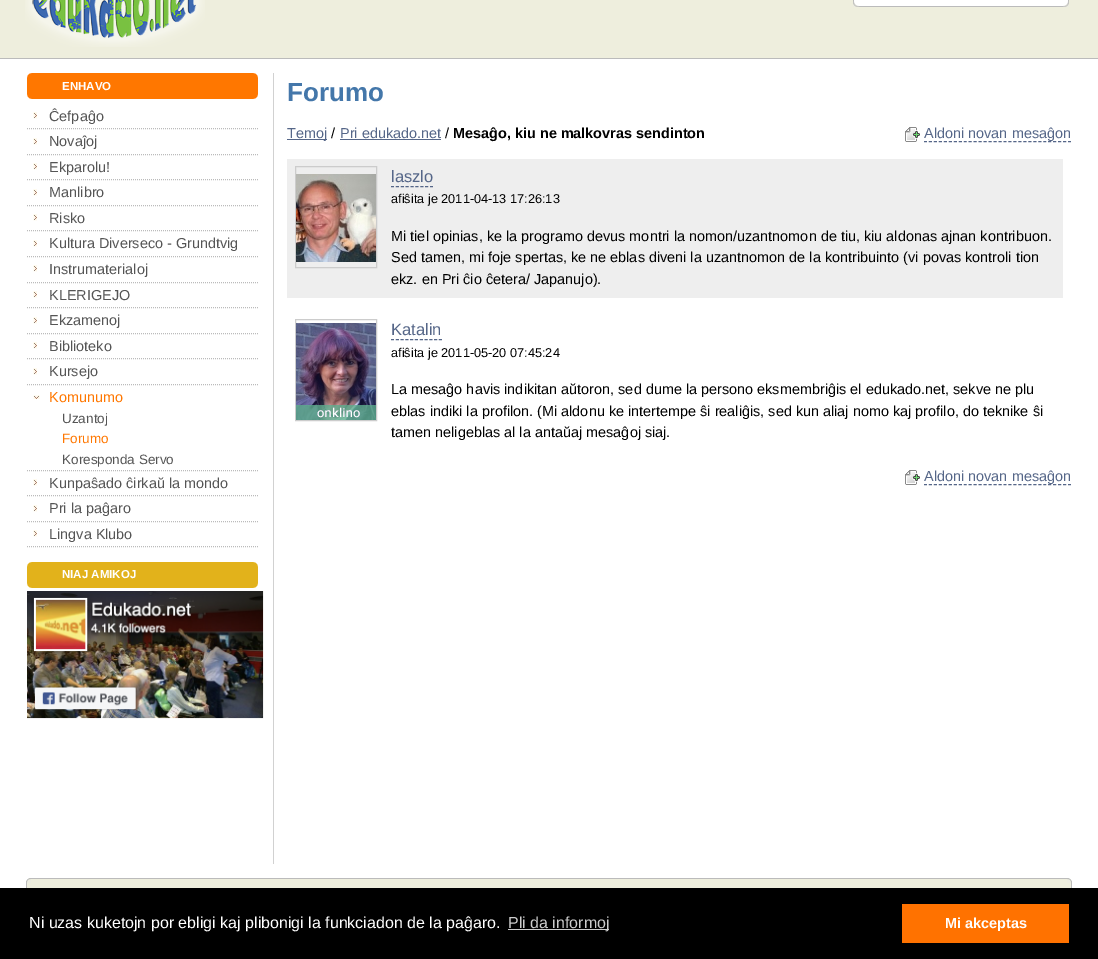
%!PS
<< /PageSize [1098 959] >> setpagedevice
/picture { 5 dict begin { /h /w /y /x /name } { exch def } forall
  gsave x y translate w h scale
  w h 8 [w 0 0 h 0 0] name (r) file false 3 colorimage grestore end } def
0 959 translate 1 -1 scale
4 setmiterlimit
1 setgray
0 0 1098 959 rectfill
0.933 0.933 0.867 setrgbcolor
0 0 1098 58 rectfill
0.733 setgray
0 58 1098 1 rectfill
(img1.rgb) 25 0 180 47 picture
1 setgray
853 0 216 6 rectfill
0.733 setgray
1068 0 1 1 rectfill
853 0 1 1 rectfill
853 6 216 1 rectfill
(img2.rgb) 853 1 6 6 picture
(img3.rgb) 1063 1 6 6 picture
0.82 setgray
273 73 1 791 rectfill
1 0.467 0 setrgbcolor
27 73 231 26 rectfill
(img4.rgb) 27 73 5 5 picture
(img5.rgb) 253 73 5 5 picture
/LiberationSans-Bold [11.5 0 0 -11.5 0 0] selectfont
1 setgray
62 90 moveto (ENHAVO) show
(img6.rgb) 27 94 5 5 picture
(img7.rgb) 253 94 5 5 picture
0.733 setgray
[1 1] 0 setdash
newpath 27 128.5 moveto 258 128.5 lineto stroke
(img8.rgb) 33 112 4 7 picture
/LiberationSans-Regular [14.45 0 0 -14.45 0 0] selectfont
0.333 setgray
49 121 moveto (Ĉefpaĝo) show
0.733 setgray
newpath 27 154.5 moveto 258 154.5 lineto stroke
(img8.rgb) 33 138 4 7 picture
0.333 setgray
49 146 moveto (Novaĵoj) show
0.733 setgray
newpath 27 179.5 moveto 258 179.5 lineto stroke
(img8.rgb) 33 163 4 7 picture
0.333 setgray
49 172 moveto (Ekparolu!) show
0.733 setgray
newpath 27 205.5 moveto 258 205.5 lineto stroke
(img8.rgb) 33 189 4 7 picture
0.333 setgray
49 197 moveto (Manlibro) show
0.733 setgray
newpath 27 230.5 moveto 258 230.5 lineto stroke
(img8.rgb) 33 214 4 7 picture
0.333 setgray
49 223 moveto (Risko) show
0.733 setgray
newpath 27 256.5 moveto 258 256.5 lineto stroke
(img8.rgb) 33 240 4 7 picture
0.333 setgray
49 248 moveto (Kultura Diverseco - Grundtvig) show
0.733 setgray
newpath 27 282.5 moveto 258 282.5 lineto stroke
(img8.rgb) 33 265 4 7 picture
0.333 setgray
49 274 moveto (Instrumaterialoj) show
0.733 setgray
newpath 27 307.5 moveto 258 307.5 lineto stroke
(img8.rgb) 33 291 4 7 picture
0.333 setgray
49 300 moveto (KLERIGEJO) show
0.733 setgray
newpath 27 333.5 moveto 258 333.5 lineto stroke
(img8.rgb) 33 317 4 7 picture
0.333 setgray
49 325 moveto (Ekzamenoj) show
0.733 setgray
newpath 27 358.5 moveto 258 358.5 lineto stroke
(img8.rgb) 33 342 4 7 picture
0.333 setgray
49 351 moveto (Biblioteko) show
0.733 setgray
newpath 27 384.5 moveto 258 384.5 lineto stroke
(img8.rgb) 33 368 4 7 picture
0.333 setgray
49 376 moveto (Kursejo) show
0.733 setgray
newpath 27 470.5 moveto 258 470.5 lineto stroke
(img9.rgb) 33 395 7 4 picture
1 0.467 0 setrgbcolor
49 402 moveto (Komunumo) show
/LiberationSans-Regular [13.5 0 0 -13.5 0 0] selectfont
0.333 setgray
62 423 moveto (Uzantoj) show
1 0.467 0 setrgbcolor
62 443 moveto (Forumo) show
0.333 setgray
62 464 moveto (Koresponda Servo) show
0.733 setgray
newpath 27 495.5 moveto 258 495.5 lineto stroke
(img8.rgb) 33 479 4 7 picture
/LiberationSans-Regular [14.45 0 0 -14.45 0 0] selectfont
0.333 setgray
49 488 moveto (Kunpaŝado ĉirkaŭ la mondo) show
0.733 setgray
newpath 27 521.5 moveto 258 521.5 lineto stroke
(img8.rgb) 33 505 4 7 picture
0.333 setgray
49 513 moveto (Pri la paĝaro) show
0.733 setgray
newpath 27 546.5 moveto 258 546.5 lineto stroke
(img8.rgb) 33 530 4 7 picture
0.333 setgray
49 539 moveto (Lingva Klubo) show
0.886 0.698 0.106 setrgbcolor
27 562 231 26 rectfill
(img10.rgb) 27 562 5 5 picture
(img11.rgb) 253 562 5 5 picture
/LiberationSans-Bold [11.5 0 0 -11.5 0 0] selectfont
1 setgray
62 578 moveto (NIAJ AMIKOJ) show
(img12.rgb) 27 583 5 5 picture
(img13.rgb) 253 583 5 5 picture
(img14.rgb) 27 591 237 128 picture
/LiberationSans-Bold [26 0 0 -26 0 0] selectfont
0.267 0.467 0.667 setrgbcolor
287 101 moveto (Forumo) show
0.333 0.4 0.533 setrgbcolor
287 139 40 1 rectfill
/LiberationSans-Regular [14.45 0 0 -14.45 0 0] selectfont
287 138 moveto (Temoj) show
0 setgray
331 138 moveto (/) show
0.333 0.4 0.533 setrgbcolor
340 138 moveto (Pri edukado.net) show
340 139 101 1 rectfill
0 setgray
445 138 moveto (/) show
/LiberationSans-Bold [14.45 0 0 -14.45 0 0] selectfont
453 138 moveto (Mesaĝo, kiu ne malkovras sendinton) show
(img15.rgb) 905 127 15 15 picture
/LiberationSans-Regular [14.45 0 0 -14.45 0 0] selectfont
0.333 0.4 0.533 setrgbcolor
924 138 moveto (Aldoni novan mesaĝon) show
[3 1.97] 0 setdash
newpath 924 141.5 moveto 1071 141.5 lineto stroke
0.933 setgray
287 159 776 139 rectfill
0.8 setgray
[] 0 setdash
295.5 166.5 81 101 rectstroke
(img16.rgb) 296 174 80 88 picture
/LiberationSans-Regular [16.5 0 0 -16.5 0 0] selectfont
0.333 0.4 0.533 setrgbcolor
391 182 moveto (laszlo) show
[3 1.88] 0 setdash
newpath 391 186.5 moveto 433 186.5 lineto stroke
/LiberationSans-Regular [12.75 0 0 -12.75 0 0] selectfont
0 setgray
391 203 moveto (afiŝita je 2011-04-13 17:26:13) show
/LiberationSans-Regular [14.45 0 0 -14.45 0 0] selectfont
391 241 moveto (Mi tiel opinias, ke la programo devus montri la nomon/uzantnomon de tiu, kiu aldonas ajnan kontribuon.) show
391 262 moveto (Sed tamen, mi foje spertas, ke ne eblas diveni la uzantnomon de la kontribuinto \(vi povas kontroli tion) show
391 284 moveto (ekz. en Pri ĉio ĉetera/ Japanujo\).) show
0.8 setgray
[] 0 setdash
295.5 319.5 81 101 rectstroke
(img17.rgb) 296 323 80 97 picture
(img18.rgb) 296 405 80 15 picture
/LiberationSans-Regular [16.5 0 0 -16.5 0 0] selectfont
0.333 0.4 0.533 setrgbcolor
391 335 moveto (Katalin) show
[3 1.8] 0 setdash
newpath 391 339.5 moveto 442 339.5 lineto stroke
/LiberationSans-Regular [12.75 0 0 -12.75 0 0] selectfont
0 setgray
391 357 moveto (afiŝita je 2011-05-20 07:45:24) show
/LiberationSans-Regular [14.45 0 0 -14.45 0 0] selectfont
391 394 moveto (La mesaĝo havis indikitan aŭtoron, sed dume la persono eksmembriĝis el edukado.net, sekve ne plu) show
391 416 moveto (eblas indiki la profilon. \(Mi aldonu ke intertempe ŝi realiĝis, sed kun aliaj nomo kaj profilo, do teknike ŝi) show
391 437 moveto (tamen neligeblas al la antaŭaj mesaĝoj siaj.) show
(img15.rgb) 905 470 15 15 picture
0.333 0.4 0.533 setrgbcolor
924 481 moveto (Aldoni novan mesaĝon) show
[3 1.97] 0 setdash
newpath 924 484.5 moveto 1071 484.5 lineto stroke
0.933 0.933 0.867 setrgbcolor
27 879 1044 9 rectfill
0.733 setgray
1071 878 1 10 rectfill
26 878 1 10 rectfill
27 878 1044 1 rectfill
(img19.rgb) 26 878 5 5 picture
(img20.rgb) 1067 878 5 5 picture
0 setgray
0 888 1098 71 rectfill
/LiberationSans-Regular [16 0 0 -16 0 0] selectfont
1 setgray
29 928 moveto (Ni uzas kuketojn por ebligi kaj plibonigi la funkciadon de la paĝaro.) show
0.8 setgray
508 929 101 1 rectfill
508 928 moveto (Pli da informoj) show
1 0.447 0 setrgbcolor
902 904 167 39 rectfill
/LiberationSans-Bold [14.5 0 0 -14.5 0 0] selectfont
1 setgray
945 928 moveto (Mi akceptas) show
showpage
